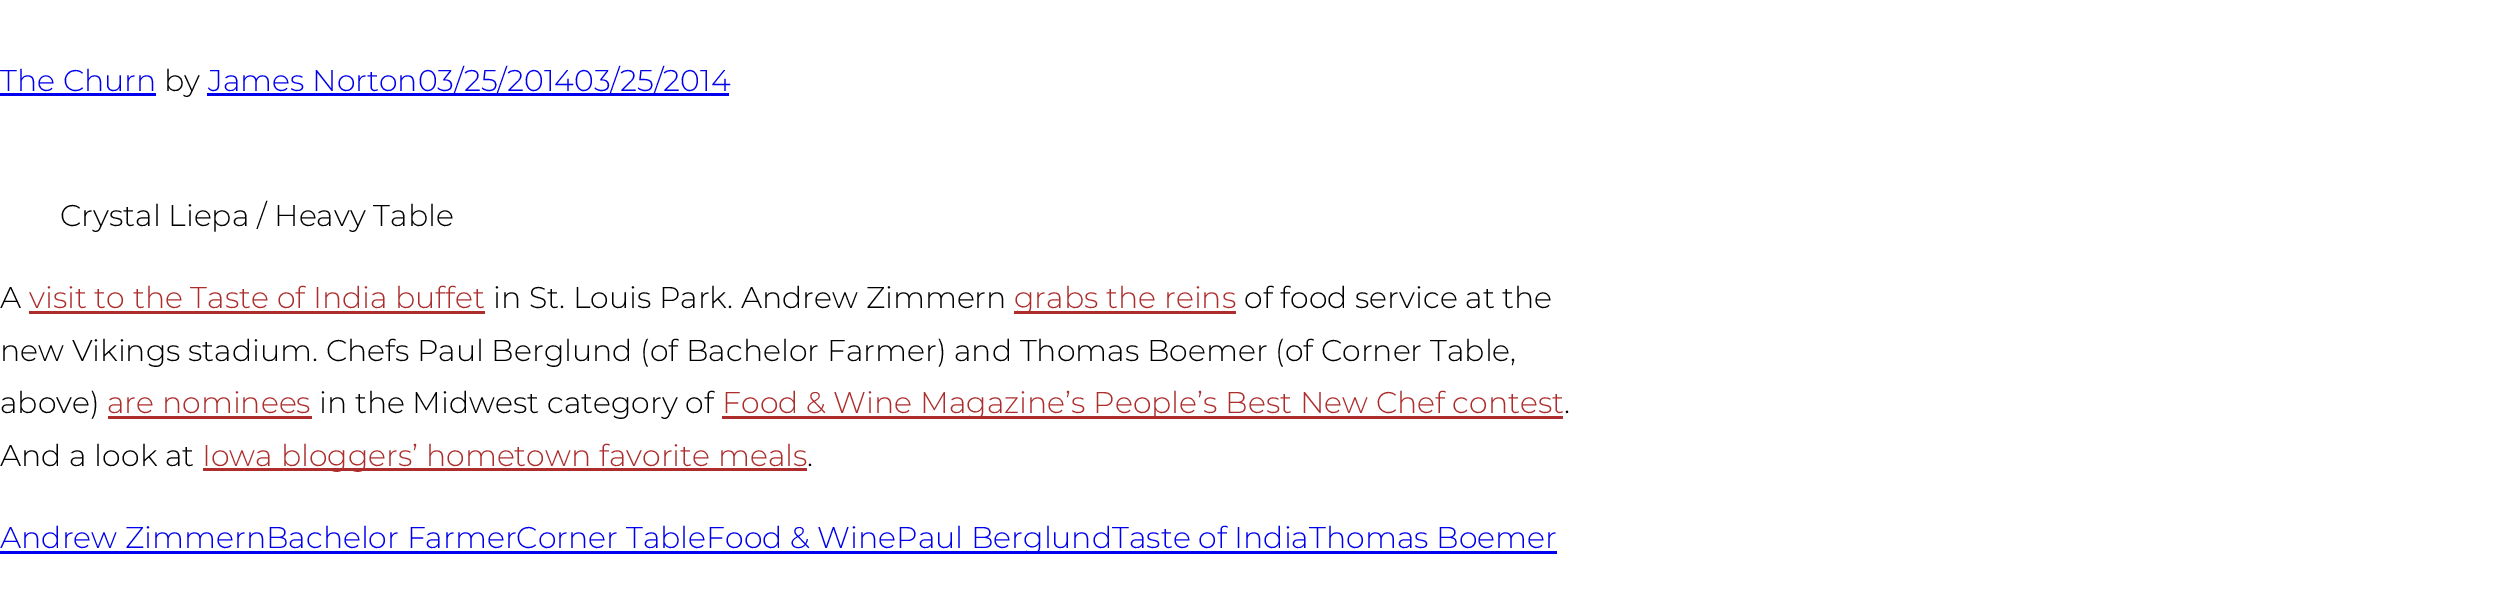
%!PS
<< /PageSize [2503 593] >> setpagedevice
0 593 translate 1 -1 scale
4 setmiterlimit
1 setgray
0 0 2503 593 rectfill
/Montserrat-Light [30 0 0 -30 0 0] selectfont
0 0 0.933 setrgbcolor
0 91 moveto (The Churn) show
0 93 156 3 rectfill
0 setgray
164 91 moveto (by) show
0 0 0.933 setrgbcolor
207 93 366 3 rectfill
208 91 moveto (James Norton03/25/2014) show
573 93 156 3 rectfill
574 91 moveto (03/25/2014) show
0 setgray
60 226 moveto (Crystal Liepa / Heavy Table) show
0 308 moveto (A) show
0.678 0.176 0.176 setrgbcolor
29 308 moveto (visit to the Taste of India buffet) show
29 311 456 3 rectfill
0 setgray
493 308 moveto (in St. Louis Park. Andrew Zimmern) show
0.678 0.176 0.176 setrgbcolor
1014 311 222 3 rectfill
1014 308 moveto (grabs the reins) show
0 setgray
1244 308 moveto (of food service at the) show
0 361 moveto (new Vikings stadium. Chefs Paul Berglund \(of Bachelor Farmer\) and Thomas Boemer \(of Corner Table,) show
0 413 moveto (above\)) show
0.678 0.176 0.176 setrgbcolor
107 413 moveto (are nominees) show
108 416 204 3 rectfill
0 setgray
319 413 moveto (in the Midwest category of) show
0.678 0.176 0.176 setrgbcolor
722 416 841 3 rectfill
722 413 moveto (Food & Wine Magazine’s People’s Best New Chef contest) show
0 setgray
1564 413 moveto (.) show
0 466 moveto (And a look at) show
0.678 0.176 0.176 setrgbcolor
203 468 604 3 rectfill
202 466 moveto (Iowa bloggers’ hometown favorite meals) show
0 setgray
807 466 moveto (.) show
0 0 0.933 setrgbcolor
0 551 1557 3 rectfill
0 548 moveto (Andrew ZimmernBachelor FarmerCorner TableFood & WinePaul BerglundTaste of IndiaThomas Boemer) show
showpage
